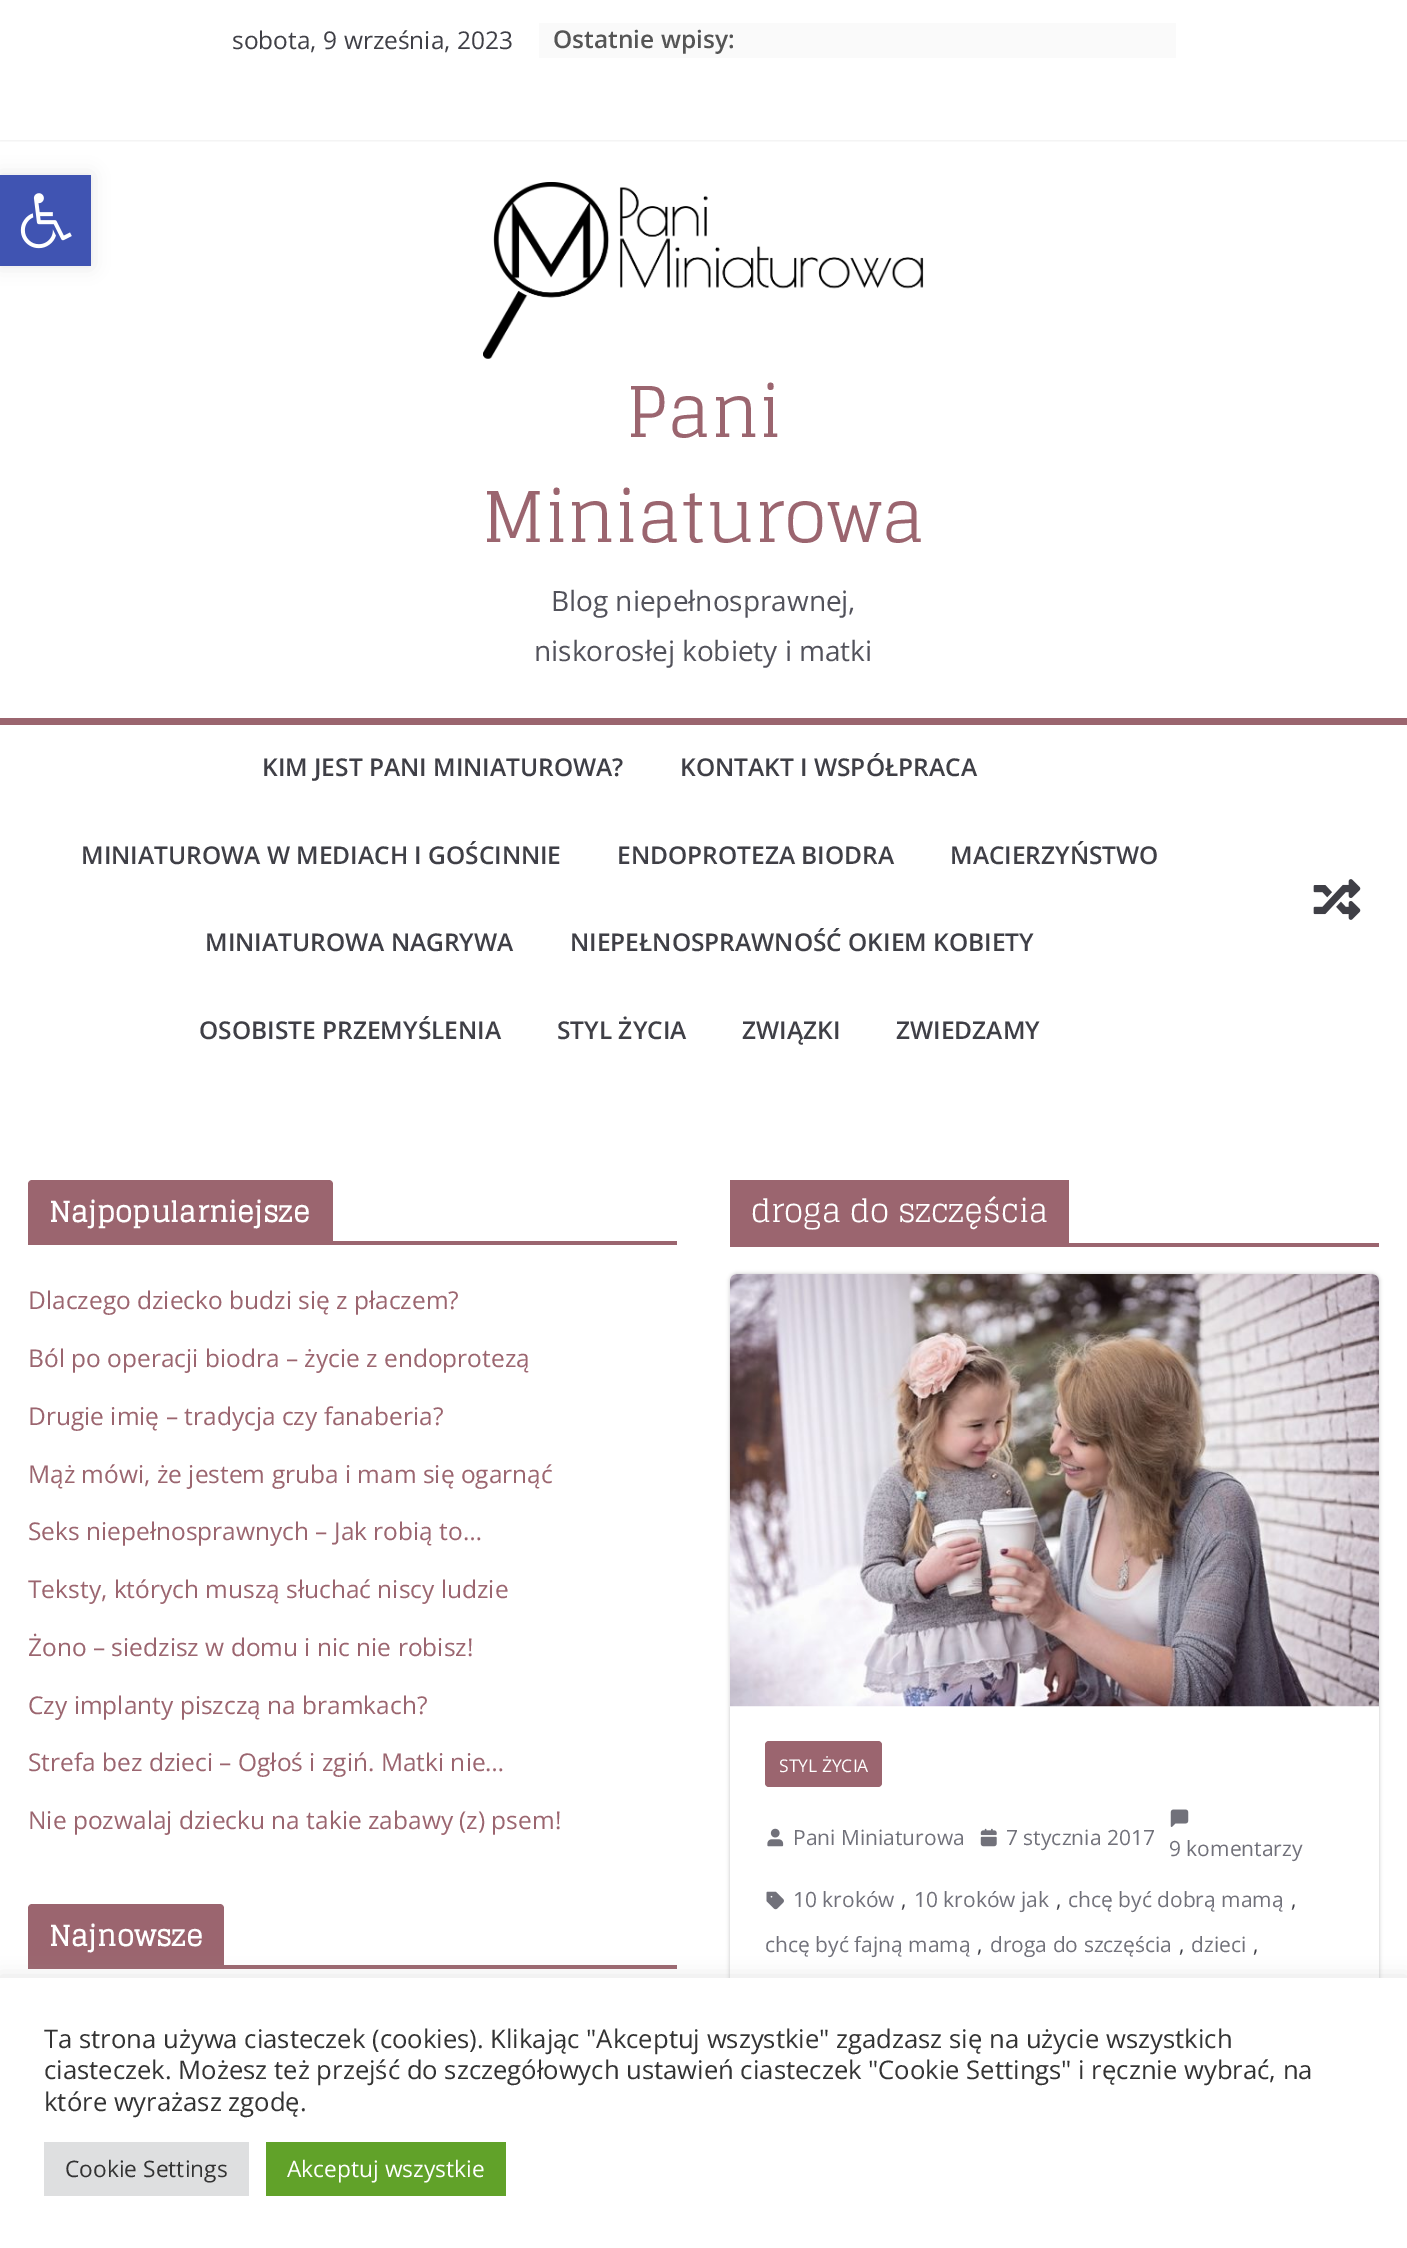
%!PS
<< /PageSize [1407 2248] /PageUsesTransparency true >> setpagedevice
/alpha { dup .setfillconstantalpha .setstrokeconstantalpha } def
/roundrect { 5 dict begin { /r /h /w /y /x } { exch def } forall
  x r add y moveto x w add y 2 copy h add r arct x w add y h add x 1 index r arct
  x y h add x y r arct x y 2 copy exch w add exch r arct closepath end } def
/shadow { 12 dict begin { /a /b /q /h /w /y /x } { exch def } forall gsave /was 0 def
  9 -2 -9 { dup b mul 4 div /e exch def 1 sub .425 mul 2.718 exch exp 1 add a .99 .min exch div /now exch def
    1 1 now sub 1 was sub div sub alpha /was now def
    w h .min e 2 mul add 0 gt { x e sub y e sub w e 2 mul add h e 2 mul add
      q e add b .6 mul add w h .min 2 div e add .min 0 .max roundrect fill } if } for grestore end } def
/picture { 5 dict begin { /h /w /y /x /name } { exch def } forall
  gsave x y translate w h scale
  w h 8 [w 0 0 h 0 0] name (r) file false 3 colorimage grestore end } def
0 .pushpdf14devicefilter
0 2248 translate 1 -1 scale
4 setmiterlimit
1 setgray
0 0 1407 2248 rectfill
gsave
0 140 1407 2 rectclip
0 setgray
0 0 1407 140 0 2 0.1 shadow
grestore
/OpenSans-Regular [24.5 0 0 -24.5 0 0] selectfont
0.247 0.247 0.275 setrgbcolor
232 49 moveto (sobota, 9 września, 2023) show
0.98 setgray
539 23 637 35 rectfill
/OpenSans-SemiBold [24.5 0 0 -24.5 0 0] selectfont
0.333 setgray
553 48 moveto (Ostatnie wpisy:) show
(img1.rgb) 483 182 441 177 picture
/Glegoo-Regular [70 0 0 -70 0 0] selectfont
0.608 0.396 0.435 setrgbcolor
626 437 moveto (Pani) show
482 542 moveto (Miniaturowa) show
/OpenSans-Regular [28 0 0 -28 0 0] selectfont
0.322 0.322 0.357 setrgbcolor
551 611 moveto (Blog niepełnosprawnej,) show
534 661 moveto (niskorosłej kobiety i matki) show
0.608 0.396 0.435 setrgbcolor
0 718 1407 7 rectfill
/OpenSans-SemiBold [24.5 0 0 -24.5 0 0] selectfont
0.247 0.247 0.275 setrgbcolor
262 776 moveto (KIM JEST PANI MINIATUROWA?) show
680 776 moveto (KONTAKT I WSPÓŁPRACA) show
81 864 moveto (MINIATUROWA W MEDIACH I GOŚCINNIE) show
617 864 moveto (ENDOPROTEZA BIODRA) show
950 864 moveto (MACIERZYŃSTWO) show
205 951 moveto (MINIATUROWA NAGRYWA) show
570 951 moveto (NIEPEŁNOSPRAWNOŚĆ OKIEM KOBIETY) show
199 1039 moveto (OSOBISTE PRZEMYŚLENIA) show
557 1039 moveto (STYL ŻYCIA) show
742 1039 moveto (ZWIĄZKI) show
896 1039 moveto (ZWIEDZAMY) show
(img2.rgb) 1313 879 48 41 picture
0.608 0.396 0.435 setrgbcolor
28 1241 649 4 rectfill
newpath 32 1180 moveto 329 1180 lineto 331 1180 333 1182 333 1184 curveto 333 1241 lineto 28 1241 lineto 28 1184 lineto 28 1182 30 1180 32 1180 curveto closepath fill
/Glegoo-Bold [28 0 0 -28 0 0] selectfont
1 setgray
49 1222 moveto 0.25 0 (Najpopularniejsze) ashow
/OpenSans-Regular [24.5 0 0 -24.5 0 0] selectfont
0.608 0.396 0.435 setrgbcolor
28 1309 moveto (Dlaczego dziecko budzi się z płaczem?) show
28 1367 moveto (Ból po operacji biodra – życie z endoprotezą) show
28 1425 moveto (Drugie imię – tradycja czy fanaberia?) show
28 1483 moveto (Mąż mówi, że jestem gruba i mam się ogarnąć) show
28 1540 moveto (Seks niepełnosprawnych – Jak robią to…) show
28 1598 moveto (Teksty, których muszą słuchać niscy ludzie) show
28 1656 moveto (Żono – siedzisz w domu i nic nie robisz!) show
28 1714 moveto (Czy implanty piszczą na bramkach?) show
28 1771 moveto (Strefa bez dzieci – Ogłoś i zgiń. Matki nie…) show
28 1829 moveto (Nie pozwalaj dziecku na takie zabawy \(z\) psem!) show
28 1965 649 4 rectfill
newpath 32 1904 moveto 220 1904 lineto 222 1904 224 1906 224 1908 curveto 224 1965 lineto 28 1965 lineto 28 1908 lineto 28 1906 30 1904 32 1904 curveto closepath fill
/Glegoo-Bold [28 0 0 -28 0 0] selectfont
1 setgray
49 1946 moveto 0.25 0 (Najnowsze) ashow
0.608 0.396 0.435 setrgbcolor
730 1243 649 4 rectfill
730 1180 339 63 rectfill
/Glegoo-Regular [31.5 0 0 -31.5 0 0] selectfont
1 setgray
751 1222 moveto (droga do szczęścia) show
gsave
newpath 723 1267 moveto 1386 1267 lineto 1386 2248 lineto 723 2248 lineto closepath 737 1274 moveto 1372 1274 lineto 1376 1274 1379 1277 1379 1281 curveto 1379 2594 lineto 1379 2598 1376 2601 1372 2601 curveto 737 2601 lineto 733 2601 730 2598 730 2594 curveto 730 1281 lineto 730 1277 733 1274 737 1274 curveto closepath eoclip newpath
0 setgray
730 1274 649 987 7 2 0.24 shadow
grestore
(img3.rgb) 729 1274 650 433 picture
0.608 0.396 0.435 setrgbcolor
765 1741 117 46 4 roundrect fill
/OpenSans-Regular [17.5 0 0 -17.5 0 0] selectfont
1 setgray
779 1772 moveto (STYL ŻYCIA) show
(img4.rgb) 767 1828 17 19 picture
/OpenSans-Regular [21 0 0 -21 0 0] selectfont
0.443 0.443 0.478 setrgbcolor
793 1845 moveto (Pani Miniaturowa) show
(img5.rgb) 980 1828 17 19 picture
1006 1845 moveto (7 stycznia 2017) show
(img6.rgb) 1170 1809 19 18 picture
1169 1856 moveto (9 komentarzy) show
(img7.rgb) 766 1891 18 19 picture
793 1907 moveto (10 kroków) show
0.247 0.247 0.275 setrgbcolor
901 1907 moveto (,) show
0.443 0.443 0.478 setrgbcolor
914 1907 moveto (10 kroków jak) show
0.247 0.247 0.275 setrgbcolor
1056 1907 moveto (,) show
0.443 0.443 0.478 setrgbcolor
1068 1907 moveto (chcę być dobrą mamą) show
0.247 0.247 0.275 setrgbcolor
1291 1907 moveto (,) show
0.443 0.443 0.478 setrgbcolor
765 1952 moveto (chcę być fajną mamą) show
0.247 0.247 0.275 setrgbcolor
977 1952 moveto (,) show
0.443 0.443 0.478 setrgbcolor
990 1952 moveto (droga do szczęścia) show
0.247 0.247 0.275 setrgbcolor
1179 1952 moveto (,) show
0.443 0.443 0.478 setrgbcolor
1191 1952 moveto (dzieci) show
0.247 0.247 0.275 setrgbcolor
1253 1952 moveto (,) show
0 setgray
0 175 91 91 0 9 0.1 shadow
0.251 0.329 0.698 setrgbcolor
0 175 91 91 rectfill
(img8.rgb) 20 193 52 56 picture
0.675 0.671 0.671 setrgbcolor
0 1976 1407 271 0 9 0.3 shadow
1 setgray
0 1978 1407 270 rectfill
/OpenSans-Regular [25.65 0 0 -25.65 0 0] selectfont
0.2 setgray
44 2048 moveto (Ta strona używa ciasteczek \(cookies\). Klikając "Akceptuj wszystkie" zgadzasz się na użycie wszystkich) show
44 2079 moveto (ciasteczek. Możesz też przejść do szczegółowych ustawień ciasteczek "Cookie Settings" i ręcznie wybrać, na) show
44 2111 moveto (które wyrażasz zgodę.) show
0.871 0.875 0.878 setrgbcolor
44 2142 205 54 rectfill
/OpenSans-Regular [22.75 0 0 -22.75 0 0] selectfont
0.2 setgray
65 2177 moveto (Cookie Settings) show
0.38 0.635 0.161 setrgbcolor
266 2142 240 54 rectfill
1 setgray
287 2177 moveto (Akceptuj wszystkie) show
.poppdf14devicefilter showpage
